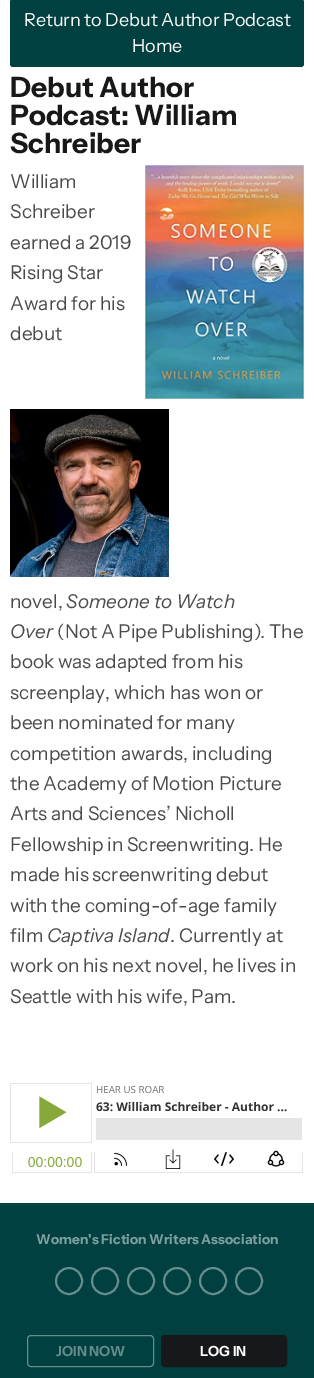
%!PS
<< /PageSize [314 1378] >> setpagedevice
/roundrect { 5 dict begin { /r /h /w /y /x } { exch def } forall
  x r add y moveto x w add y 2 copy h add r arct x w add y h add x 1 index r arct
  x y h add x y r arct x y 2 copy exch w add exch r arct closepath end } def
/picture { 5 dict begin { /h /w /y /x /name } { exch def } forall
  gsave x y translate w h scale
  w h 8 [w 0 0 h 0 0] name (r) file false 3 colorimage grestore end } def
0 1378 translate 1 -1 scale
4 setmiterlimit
1 setgray
0 0 314 1378 rectfill
0 0.251 0.251 setrgbcolor
10 -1 294 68 3 roundrect fill
/InstrumentSans-Regular [18 0 0 -18 0 0] selectfont
1 setgray
24 26 moveto (Return to Debut Author Podcast) show
132 52 moveto (Home) show
/InstrumentSans-Bold [28 0 0 -28 0 0] selectfont
0.09 0.094 0.098 setrgbcolor
10 97 moveto (Debut Author) show
10 125 moveto (Podcast: William) show
10 153 moveto (Schreiber) show
(img1.rgb) 145 165 159 234 picture
(img2.rgb) 10 409 159 168 picture
/InstrumentSans-Regular [19 0 0 -19 0 0] selectfont
0.29 setgray
10 188 moveto (William) show
10 218 moveto (Schreiber) show
10 249 moveto (earned a 2019) show
10 279 moveto (Rising Star) show
10 310 moveto (Award for his) show
10 340 moveto (debut) show
10 608 moveto (novel,) show
/InstrumentSans-Italic [19 0 0 -19 0 0] selectfont
66 608 moveto (Someone to Watch) show
10 638 moveto (Over) show
/InstrumentSans-Regular [19 0 0 -19 0 0] selectfont
57 638 moveto (\(Not A Pipe Publishing\)) show
/InstrumentSans-Italic [19 0 0 -19 0 0] selectfont
261 638 moveto (.) show
/InstrumentSans-Regular [19 0 0 -19 0 0] selectfont
269 638 moveto (The) show
10 668 moveto (book was adapted from his) show
10 699 moveto (screenplay, which has won or) show
10 729 moveto (been nominated for many) show
10 760 moveto (competition awards, including) show
10 790 moveto (the Academy of Motion Picture) show
10 820 moveto (Arts and Sciences’ Nicholl) show
10 851 moveto (Fellowship in Screenwriting. He) show
10 881 moveto (made his screenwriting debut) show
10 912 moveto (with the coming-of-age family) show
10 942 moveto (film) show
/InstrumentSans-Italic [19 0 0 -19 0 0] selectfont
47 942 moveto (Captiva Island) show
/InstrumentSans-Regular [19 0 0 -19 0 0] selectfont
170 942 moveto (. Currently at) show
10 972 moveto (work on his next novel, he lives in) show
10 1003 moveto (Seattle with his wife, Pam.) show
(img3.rgb) 10 1083 293 90 picture
0 0.251 0.251 setrgbcolor
0 1203 314 175 rectfill
/InstrumentSans-Bold [13.6 0 0 -13.6 0 0] selectfont
0.502 0.627 0.627 setrgbcolor
36 1244 moveto (Women's Fiction Writers Association) show
0.4 0.549 0.549 setrgbcolor
2 setlinewidth
newpath 69 1281 13 0 360 arc closepath stroke
newpath 105 1281 13 0 360 arc closepath stroke
newpath 141 1281 13 0 360 arc closepath stroke
newpath 177 1281 13 0 360 arc closepath stroke
newpath 213 1281 13 0 360 arc closepath stroke
newpath 249 1281 13 0 360 arc closepath stroke
1 setlinewidth
27.5 1335.5 126 31 3.5 roundrect stroke
/InstrumentSans-Bold [14 0 0 -14 0 0] selectfont
56 1356 moveto (JOIN NOW) show
0.09 0.094 0.098 setrgbcolor
161.5 1335.5 125 31 3.5 roundrect gsave fill grestore
stroke
1 setgray
200 1356 moveto (LOG IN) show
showpage
